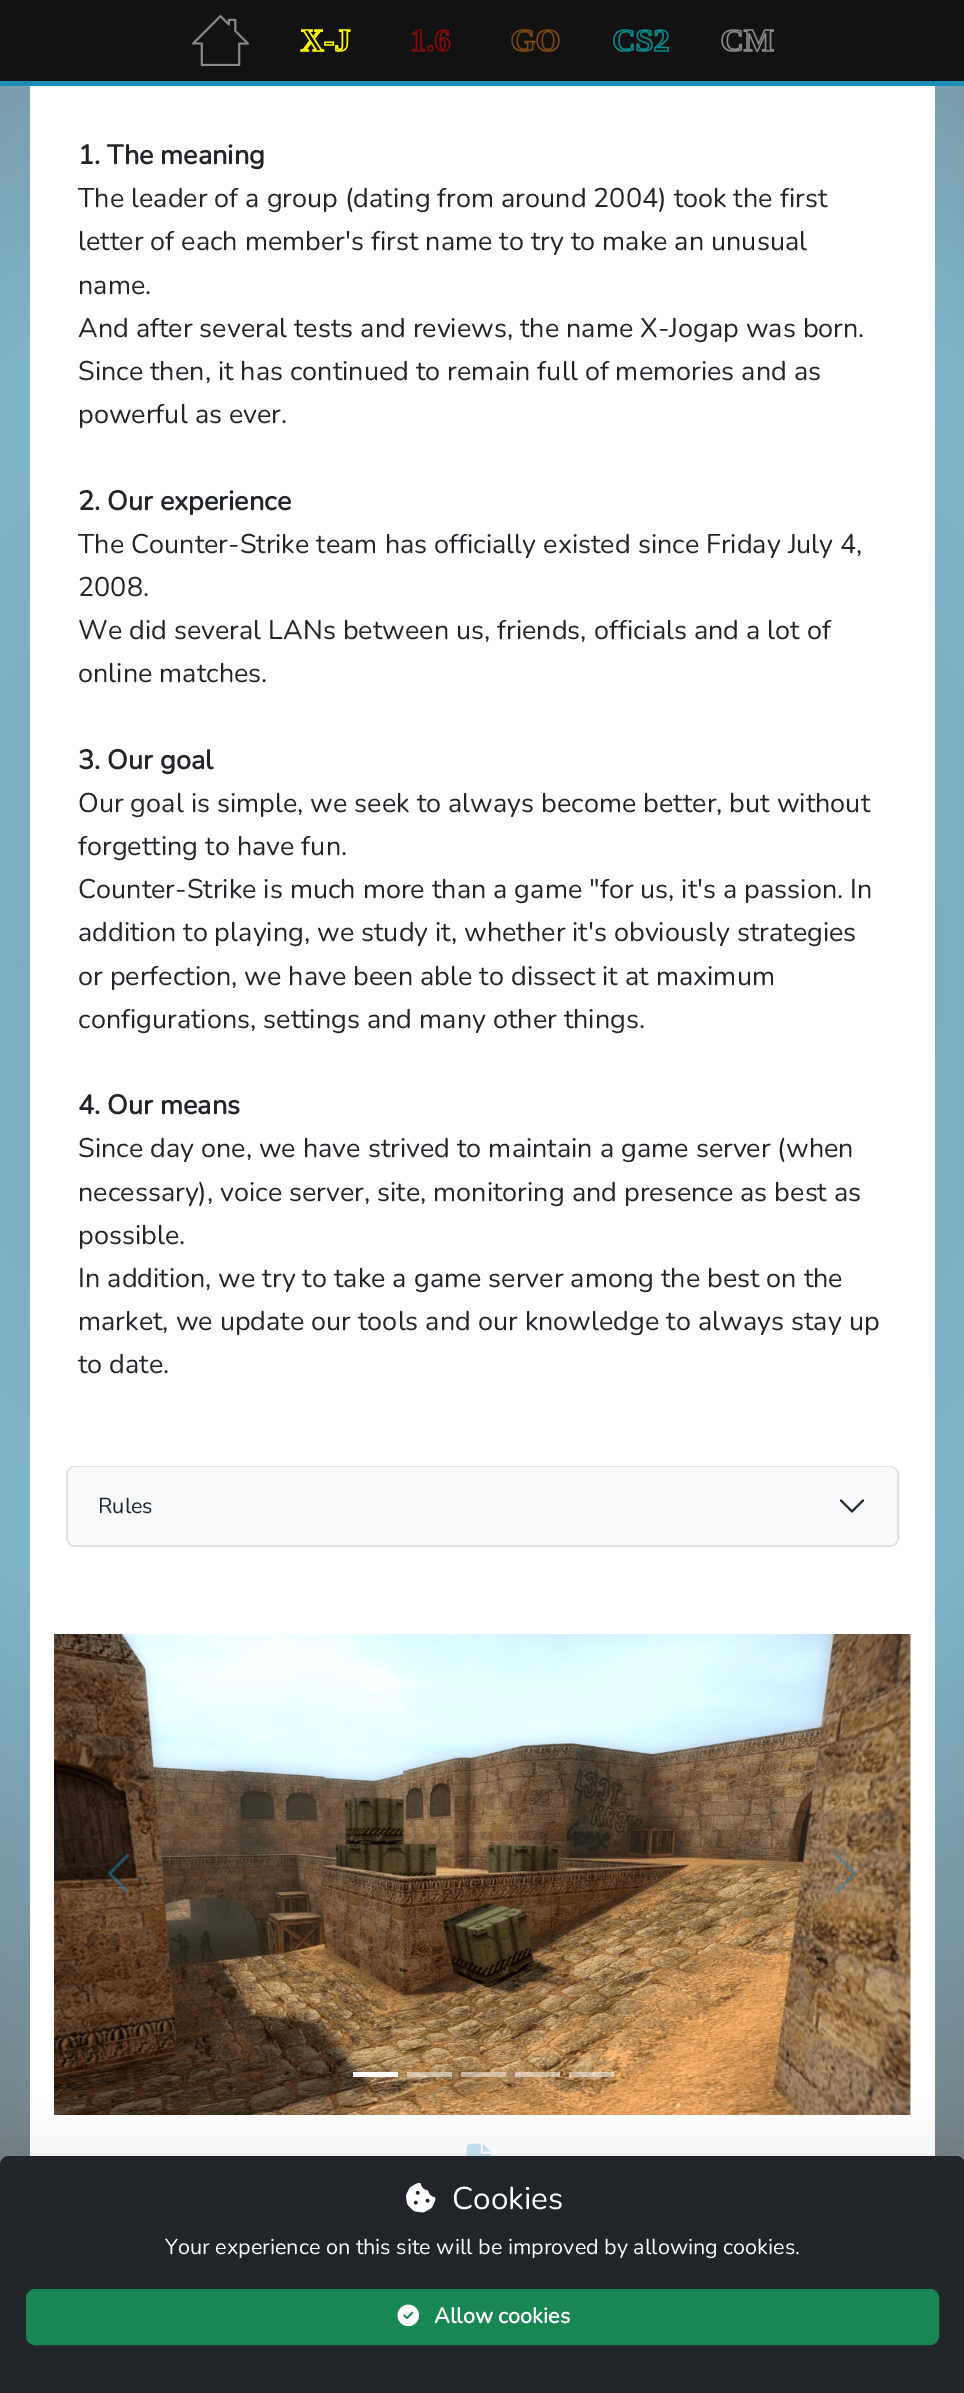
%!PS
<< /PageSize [964 2393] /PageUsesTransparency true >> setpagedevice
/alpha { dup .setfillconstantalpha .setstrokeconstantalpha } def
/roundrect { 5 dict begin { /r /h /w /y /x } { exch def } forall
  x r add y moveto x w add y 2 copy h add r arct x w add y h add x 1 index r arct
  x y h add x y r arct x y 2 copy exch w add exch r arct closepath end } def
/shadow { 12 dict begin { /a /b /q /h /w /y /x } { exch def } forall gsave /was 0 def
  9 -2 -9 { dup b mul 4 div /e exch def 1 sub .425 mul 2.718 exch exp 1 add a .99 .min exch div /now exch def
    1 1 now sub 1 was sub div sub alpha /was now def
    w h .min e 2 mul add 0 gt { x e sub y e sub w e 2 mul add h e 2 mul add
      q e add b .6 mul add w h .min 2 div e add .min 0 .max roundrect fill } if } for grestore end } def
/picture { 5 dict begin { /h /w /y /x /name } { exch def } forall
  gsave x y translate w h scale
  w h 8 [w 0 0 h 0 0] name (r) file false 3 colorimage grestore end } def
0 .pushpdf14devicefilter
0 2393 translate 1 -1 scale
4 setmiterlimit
1 setgray
0 0 964 2393 rectfill
0.071 setgray
0 0 964 81 rectfill
0.118 0.549 0.722 setrgbcolor
0 81 964 5 rectfill
(img1.rgb) 192 15 57 51 picture
(img2.rgb) 300 29 51 23 picture
(img3.rgb) 412 29 39 23 picture
(img4.rgb) 511 29 49 23 picture
(img5.rgb) 613 29 56 23 picture
(img6.rgb) 721 29 53 23 picture
gsave newpath 0 86 moveto 964 86 lineto 964 2165 lineto 0 2165 lineto closepath clip newpath 482 965 translate 1477 1477 scale
<< /ShadingType 3 /ColorSpace /DeviceRGB /Coords [0 0 0 0 0 1] /Extend [true true] /Function << /FunctionType 3 /Domain [0 1] /Functions [<< /FunctionType 2 /Domain [0 1] /C0 [0.475 0.616 0.671] /C1 [0.498 0.714 0.8] /N 1 >> << /FunctionType 2 /Domain [0 1] /C0 [0.498 0.714 0.8] /C1 [0.439 0.439 0.439] /N 1 >>] /Bounds [0.5] /Encode [0 1 0 1] >> >> shfill grestore
1 setgray
30 86 905 2070 rectfill
/Nunito-Bold [27 0 0 -27 0 0] selectfont
0.129 0.145 0.161 setrgbcolor
78 164 moveto (1. The meaning) show
/Nunito-Regular [27 0 0 -27 0 0] selectfont
78 207 moveto (The leader of a group \(dating from around 2004\) took the first) show
78 250 moveto (letter of each member's first name to try to make an unusual) show
78 294 moveto (name.) show
78 337 moveto (And after several tests and reviews, the name X-Jogap was born.) show
78 380 moveto (Since then, it has continued to remain full of memories and as) show
78 423 moveto (powerful as ever.) show
/Nunito-Bold [27 0 0 -27 0 0] selectfont
78 510 moveto (2. Our experience) show
/Nunito-Regular [27 0 0 -27 0 0] selectfont
78 553 moveto (The Counter-Strike team has officially existed since Friday July 4,) show
78 596 moveto (2008.) show
78 639 moveto (We did several LANs between us, friends, officials and a lot of) show
78 682 moveto (online matches.) show
/Nunito-Bold [27 0 0 -27 0 0] selectfont
78 769 moveto (3. Our goal) show
/Nunito-Regular [27 0 0 -27 0 0] selectfont
78 812 moveto (Our goal is simple, we seek to always become better, but without) show
78 855 moveto (forgetting to have fun.) show
78 898 moveto (Counter-Strike is much more than a game "for us, it's a passion. In) show
78 941 moveto (addition to playing, we study it, whether it's obviously strategies) show
78 985 moveto (or perfection, we have been able to dissect it at maximum) show
78 1028 moveto (configurations, settings and many other things.) show
/Nunito-Bold [27 0 0 -27 0 0] selectfont
78 1114 moveto (4. Our means) show
/Nunito-Regular [27 0 0 -27 0 0] selectfont
78 1157 moveto (Since day one, we have strived to maintain a game server \(when) show
78 1201 moveto (necessary\), voice server, site, monitoring and presence as best as) show
78 1244 moveto (possible.) show
78 1287 moveto (In addition, we try to take a game server among the best on the) show
78 1330 moveto (market, we update our tools and our knowledge to always stay up) show
78 1373 moveto (to date.) show
0.973 0.98 0.988 setrgbcolor
67 1467 831 79 8 roundrect gsave fill grestore
0.871 0.886 0.902 setrgbcolor
2 setlinewidth
stroke
0.973 0.98 0.988 setrgbcolor
68 1467 829 78 8 roundrect fill
/Nunito-Regular [21.6 0 0 -21.6 0 0] selectfont
0.129 0.145 0.161 setrgbcolor
98 1513 moveto (Rules) show
1.9 setlinewidth
1 setlinecap
1 setlinejoin
newpath 841 1500.5 moveto 852 1511.5 lineto 863 1500.5 lineto stroke
(img7.rgb) 54 1634 857 481 picture
(img8.rgb) 108 1854 21 39 picture
(img9.rgb) 835 1854 22 39 picture
1 setgray
353 2072 45 5 rectfill
0.5 alpha
407 2072 45 5 rectfill
461 2072 45 5 rectfill
515 2072 45 5 rectfill
569 2072 45 5 rectfill
1 alpha
(img10.rgb) 466 2143 25 13 picture
0 setgray
0 2180 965 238 9 36 0.18 shadow
0.129 0.145 0.161 setrgbcolor
newpath 9 2156 moveto 956 2156 lineto 961 2156 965 2160 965 2165 curveto 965 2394 lineto 0 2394 lineto 0 2165 lineto 0 2160 4 2156 9 2156 curveto closepath fill
(img11.rgb) 406 2183 30 30 picture
/Nunito-Regular [31.5 0 0 -31.5 0 0] selectfont
1 setgray
452 2209 moveto (Cookies) show
/Nunito-Regular [21.6 0 0 -21.6 0 0] selectfont
165 2254 moveto (Your experience on this site will be improved by allowing cookies.) show
0.098 0.529 0.329 setrgbcolor
27 2290 911 54 8 roundrect gsave fill grestore
2 setlinewidth
0 setlinecap
0 setlinejoin
stroke
(img12.rgb) 397 2304 23 23 picture
/Nunito-Bold [21.6 0 0 -21.6 0 0] selectfont
1 setgray
434 2323 moveto (Allow cookies) show
.poppdf14devicefilter showpage
